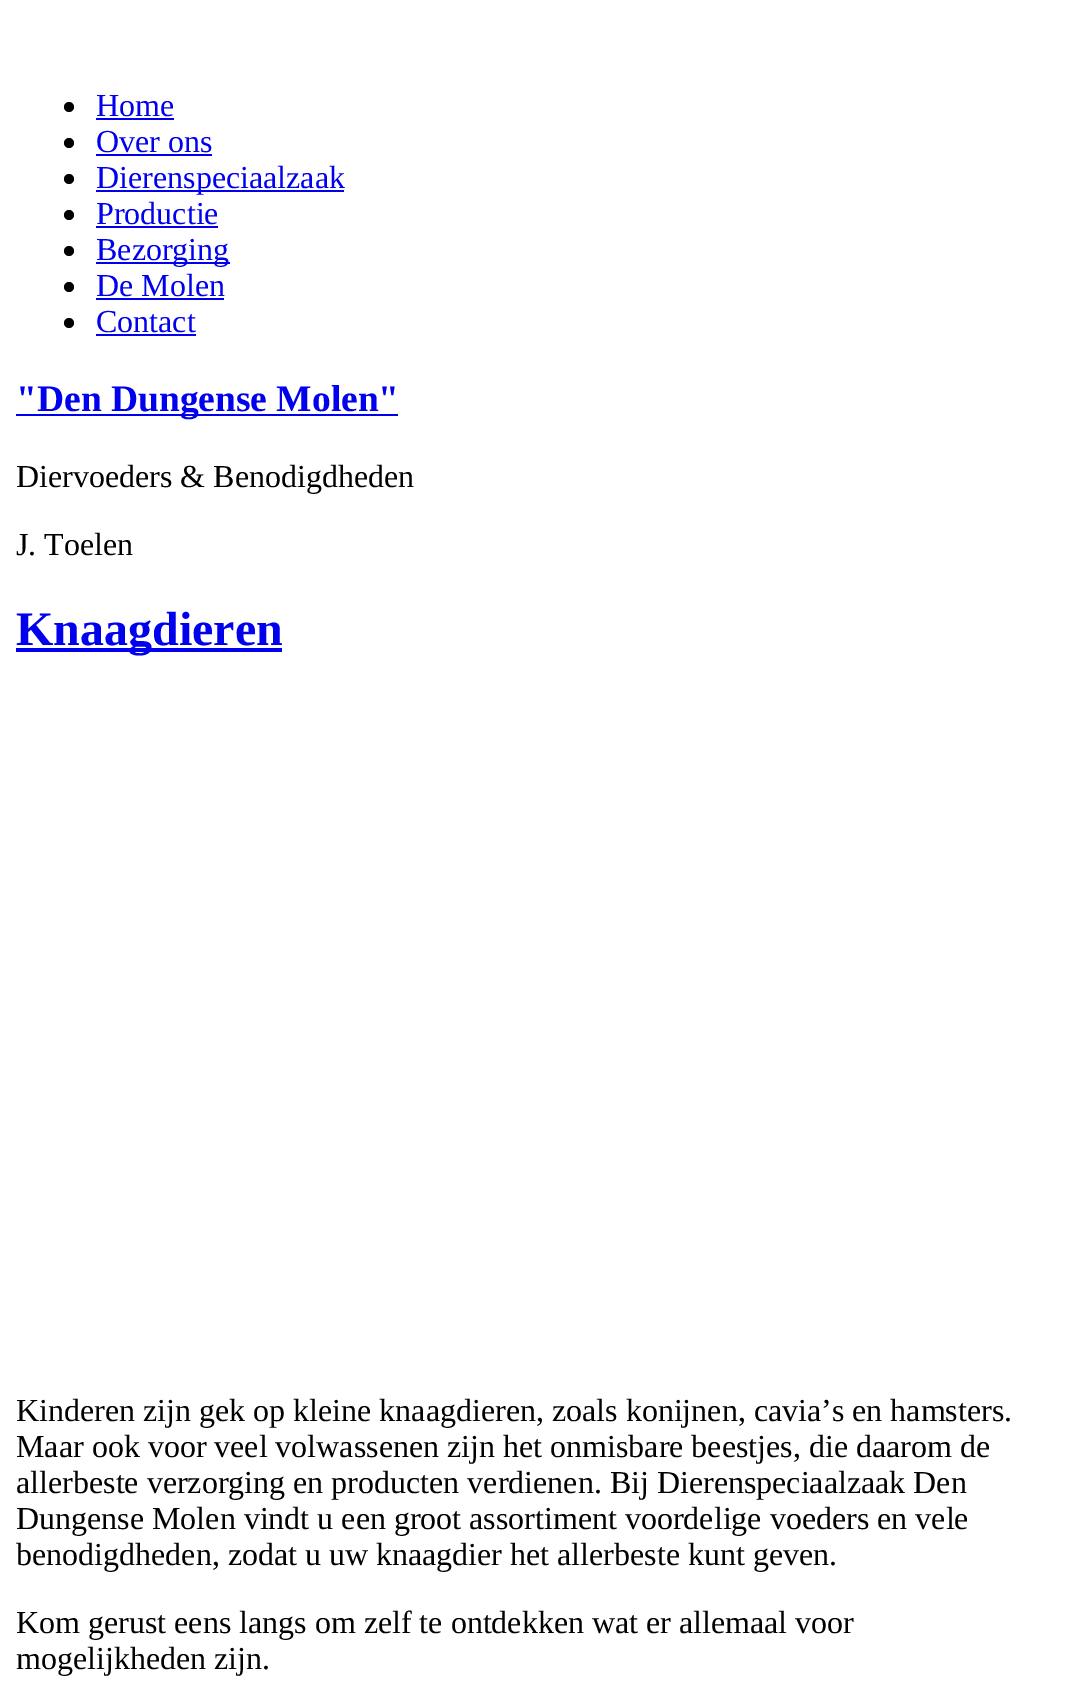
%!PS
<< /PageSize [1065 1705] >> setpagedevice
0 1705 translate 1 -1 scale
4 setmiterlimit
1 setgray
0 0 1065 1705 rectfill
0 setgray
newpath 69 107 5 0 360 arc closepath fill
/LiberationSerif-Regular [32 0 0 -32 0 0] selectfont
0 0 0.933 setrgbcolor
96 116 moveto (Home) show
96 118 78 2 rectfill
0 setgray
newpath 69 143 5 0 360 arc closepath fill
0 0 0.933 setrgbcolor
96 152 moveto (Over ons) show
96 154 116 2 rectfill
0 setgray
newpath 69 179 5 0 360 arc closepath fill
0 0 0.933 setrgbcolor
96 190 248 2 rectfill
96 188 moveto (Dierenspeciaalzaak) show
0 setgray
newpath 69 215 5 0 360 arc closepath fill
0 0 0.933 setrgbcolor
96 224 moveto (Productie) show
96 226 122 2 rectfill
0 setgray
newpath 69 251 5 0 360 arc closepath fill
0 0 0.933 setrgbcolor
96 262 134 2 rectfill
96 260 moveto (Bezorging) show
0 setgray
newpath 69 287 5 0 360 arc closepath fill
0 0 0.933 setrgbcolor
96 296 moveto (De Molen) show
96 298 128 2 rectfill
0 setgray
newpath 69 323 5 0 360 arc closepath fill
0 0 0.933 setrgbcolor
96 332 moveto (Contact) show
96 334 100 2 rectfill
16 414 382 2 rectfill
/LiberationSerif-Bold [37.5 0 0 -37.5 0 0] selectfont
16 411 moveto ("Den Dungense Molen") show
/LiberationSerif-Regular [32 0 0 -32 0 0] selectfont
0 setgray
16 487 moveto (Diervoeders & Benodigdheden) show
16 555 moveto (J. Toelen) show
0 0 0.933 setrgbcolor
16 648 266 4 rectfill
/LiberationSerif-Bold [48 0 0 -48 0 0] selectfont
16 645 moveto (Knaagdieren) show
/LiberationSerif-Regular [32 0 0 -32 0 0] selectfont
0 setgray
16 1421 moveto (Kinderen zijn gek op kleine knaagdieren, zoals konijnen, cavia’s en hamsters.) show
16 1457 moveto (Maar ook voor veel volwassenen zijn het onmisbare beestjes, die daarom de) show
16 1493 moveto (allerbeste verzorging en producten verdienen. Bij Dierenspeciaalzaak Den) show
16 1529 moveto (Dungense Molen vindt u een groot assortiment voordelige voeders en vele) show
16 1565 moveto (benodigdheden, zodat u uw knaagdier het allerbeste kunt geven.) show
16 1633 moveto (Kom gerust eens langs om zelf te ontdekken wat er allemaal voor) show
16 1669 moveto (mogelijkheden zijn.) show
showpage
